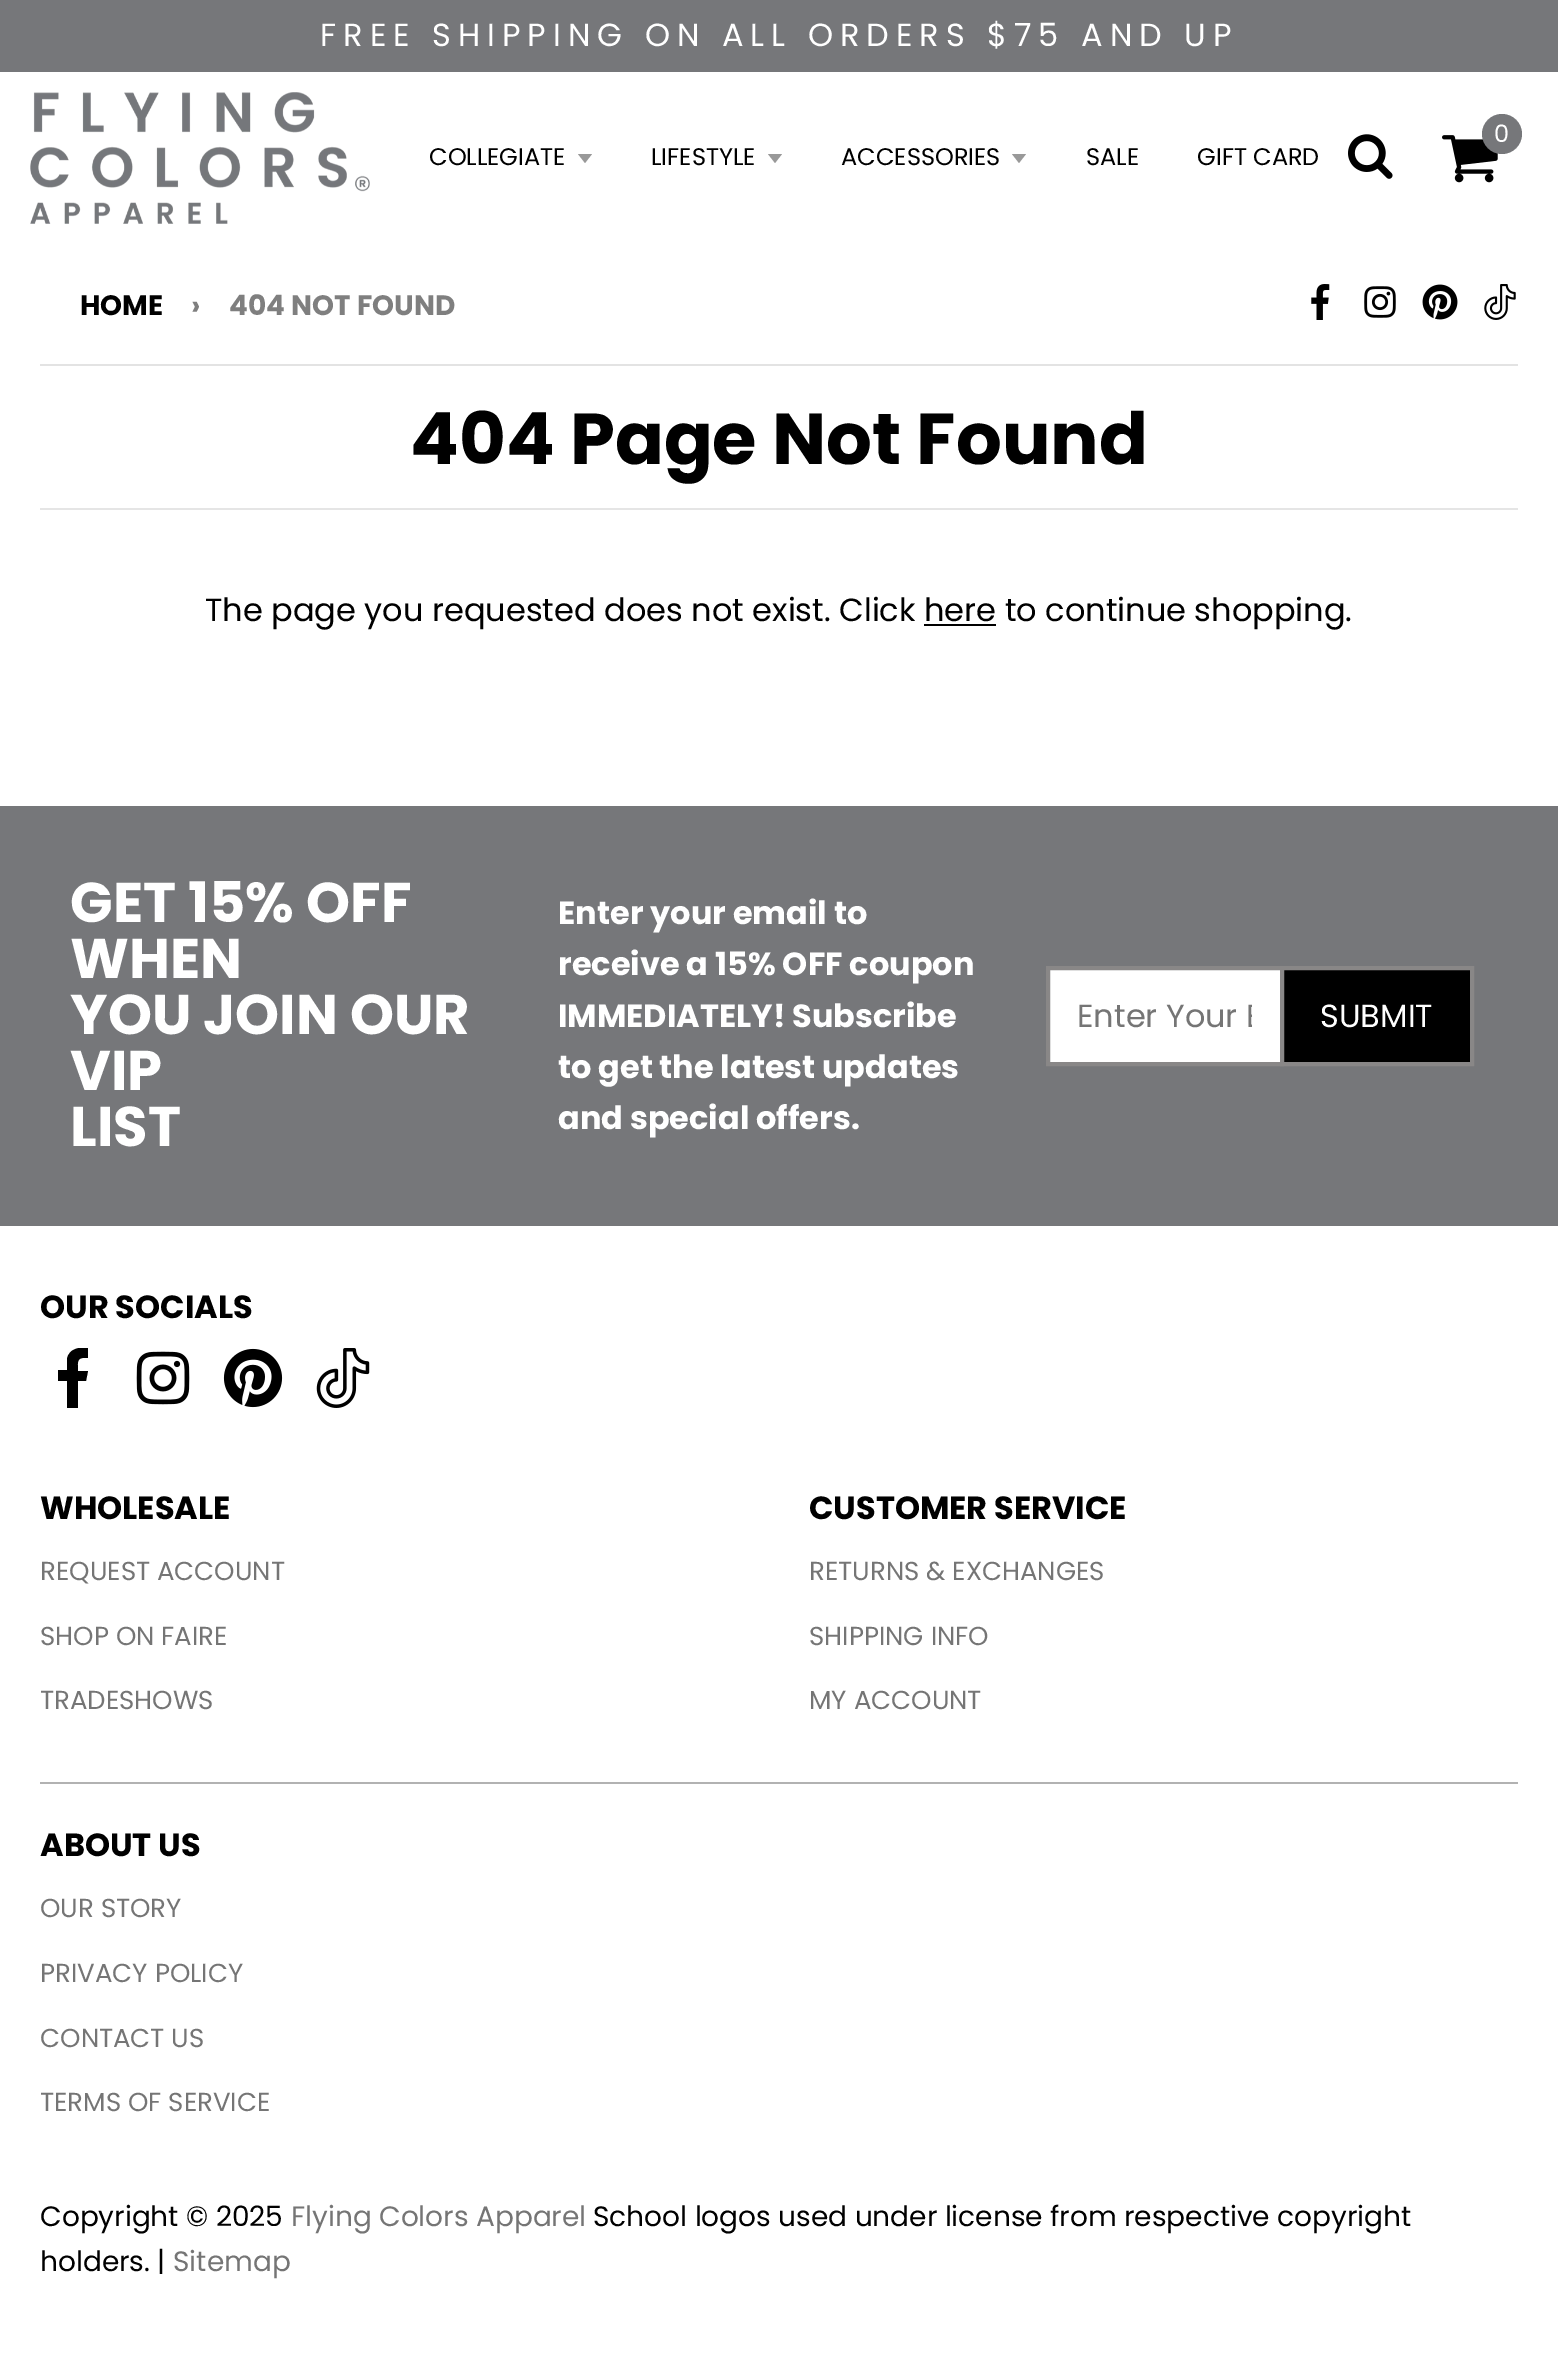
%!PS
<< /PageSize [1558 2369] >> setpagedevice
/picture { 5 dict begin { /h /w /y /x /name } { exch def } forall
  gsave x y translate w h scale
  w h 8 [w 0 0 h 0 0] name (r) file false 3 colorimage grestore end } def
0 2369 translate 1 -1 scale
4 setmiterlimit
1 setgray
0 0 1558 2369 rectfill
0.463 0.467 0.478 setrgbcolor
0 0 1558 72 rectfill
/Poppins-Regular [32 0 0 -32 0 0] selectfont
1 setgray
320 46 moveto 7 0 (FREE SHIPPING ON ALL ORDERS $75 AND UP) ashow
(img1.rgb) 30 92 340 132 picture
/Poppins-Regular [24 0 0 -24 0 0] selectfont
0 setgray
429 165 moveto (COLLEGIATE) show
0.6 setgray
newpath 578 154 moveto 585 163 lineto 592 154 lineto closepath fill
0 setgray
651 165 moveto (LIFESTYLE) show
0.6 setgray
newpath 768 154 moveto 775 163 lineto 782 154 lineto closepath fill
0 setgray
841 165 moveto (ACCESSORIES) show
0.6 setgray
newpath 1012 154 moveto 1019 163 lineto 1026 154 lineto closepath fill
0 setgray
1086 165 moveto (SALE) show
1197 165 moveto (GIFT CARD) show
(img2.rgb) 1348 134 45 45 picture
(img3.rgb) 1442 135 56 48 picture
0.463 0.467 0.478 setrgbcolor
newpath 1502 134 20 0 360 arc closepath fill
1 setgray
1494 142 moveto (0) show
0.89 setgray
40 364 1478 2 rectfill
/Poppins-Bold [28 0 0 -28 0 0] selectfont
0 setgray
80 315 moveto (HOME) show
0.498 setgray
191 315 moveto (›) show
229 315 moveto (404 NOT FOUND) show
(img4.rgb) 1311 284 19 36 picture
(img5.rgb) 1364 286 32 32 picture
(img6.rgb) 1422 284 36 36 picture
(img7.rgb) 1484 284 32 36 picture
0.898 setgray
40 508 1478 2 rectfill
/Poppins-Bold [72 0 0 -72 0 0] selectfont
0 setgray
410 464 moveto (404 Page Not Found) show
/Poppins-Regular [32 0 0 -32 0 0] selectfont
205 621 moveto (The page you requested does not exist. Click here to continue shopping.) show
924 624 72 2 rectfill
0.463 0.467 0.478 setrgbcolor
0 806 1558 420 rectfill
/Poppins-Bold [56 0 0 -56 0 0] selectfont
1 setgray
70 922 moveto (GET 15% OFF) show
70 978 moveto (WHEN) show
70 1034 moveto (YOU JOIN OUR) show
70 1090 moveto (VIP) show
70 1146 moveto (LIST) show
/Poppins-Bold [32 0 0 -32 0 0] selectfont
558 924 moveto (Enter your email to) show
558 975 moveto (receive a 15% OFF coupon) show
558 1027 moveto (IMMEDIATELY! Subscribe) show
558 1078 moveto (to get the latest updates) show
558 1129 moveto (and special offers.) show
newpath 1048 968 moveto 1282 968 lineto 1282 1064 lineto 1048 1064 lineto closepath gsave fill grestore
0.537 0.529 0.529 setrgbcolor
4 setlinewidth
stroke
gsave
1078 990 174 50 rectclip
/Poppins-Regular [32 0 0 -32 0 0] selectfont
0.459 setgray
1077 1027 moveto (Enter Your E) show
grestore
0 setgray
newpath 1282 968 moveto 1472 968 lineto 1472 1064 lineto 1282 1064 lineto closepath gsave fill grestore
0.537 0.529 0.529 setrgbcolor
stroke
/Poppins-Regular [32 0 0 -32 0 0] selectfont
1 setgray
1320 1027 moveto (SUBMIT) show
/Poppins-Bold [32 0 0 -32 0 0] selectfont
0 setgray
40 1318 moveto (OUR SOCIALS) show
gsave
40 1348 66 60 rectclip
newpath 83 1358 moveto 88 1358 lineto 88 1348 lineto 80 1347 69 1348 67 1359 curveto 67 1370 lineto 58 1370 lineto 58 1381 lineto 67 1381 lineto 67 1408 lineto 78 1408 lineto 78 1381 lineto 86 1381 lineto 88 1371 lineto 78 1371 lineto 78 1366 76 1358 83 1358 curveto closepath fill
grestore
(img8.rgb) 136 1351 54 54 picture
(img9.rgb) 223 1348 60 60 picture
(img10.rgb) 316 1348 54 60 picture
40 1519 moveto (WHOLESALE) show
/Poppins-Regular [26 0 0 -26 0 0] selectfont
0.459 setgray
40 1580 moveto (REQUEST ACCOUNT) show
40 1645 moveto (SHOP ON FAIRE) show
40 1709 moveto (TRADESHOWS) show
/Poppins-Bold [32 0 0 -32 0 0] selectfont
0 setgray
809 1519 moveto (CUSTOMER SERVICE) show
/Poppins-Regular [26 0 0 -26 0 0] selectfont
0.459 setgray
809 1580 moveto (RETURNS & EXCHANGES) show
809 1645 moveto (SHIPPING INFO) show
809 1709 moveto (MY ACCOUNT) show
0.698 setgray
40 1782 1478 2 rectfill
/Poppins-Bold [32 0 0 -32 0 0] selectfont
0 setgray
40 1856 moveto (ABOUT US) show
/Poppins-Regular [26 0 0 -26 0 0] selectfont
0.459 setgray
40 1917 moveto (OUR STORY) show
40 1982 moveto (PRIVACY POLICY) show
40 2047 moveto (CONTACT US) show
40 2111 moveto (TERMS OF SERVICE) show
/Poppins-Regular [28 0 0 -28 0 0] selectfont
0 setgray
40 2226 moveto (Copyright © 2025) show
0.459 setgray
291 2226 moveto (Flying Colors Apparel) show
0 setgray
593 2226 moveto (School logos used under license from respective copyright) show
40 2271 moveto (holders. |) show
0.459 setgray
173 2271 moveto (Sitemap) show
showpage
